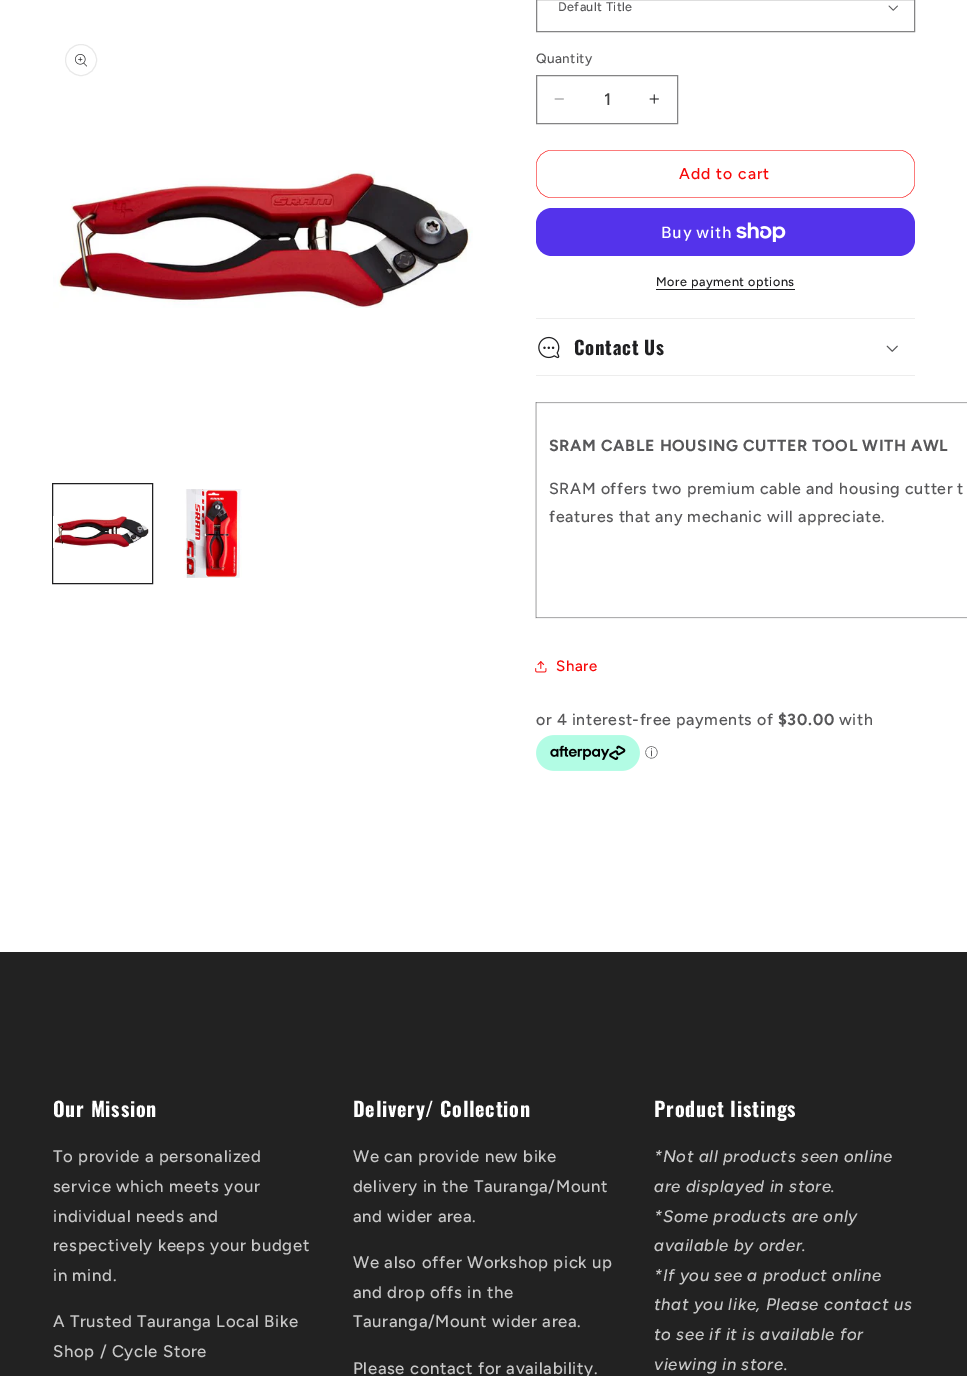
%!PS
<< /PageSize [967 1376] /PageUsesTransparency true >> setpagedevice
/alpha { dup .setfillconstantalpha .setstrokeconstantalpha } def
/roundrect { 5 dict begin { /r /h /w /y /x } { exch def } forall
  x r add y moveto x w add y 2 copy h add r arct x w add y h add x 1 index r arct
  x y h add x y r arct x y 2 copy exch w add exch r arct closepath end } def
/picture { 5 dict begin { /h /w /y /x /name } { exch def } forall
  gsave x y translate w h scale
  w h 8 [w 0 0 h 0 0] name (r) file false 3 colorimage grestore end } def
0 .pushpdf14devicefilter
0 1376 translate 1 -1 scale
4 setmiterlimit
1 setgray
0 0 967 1376 rectfill
0.914 setgray
newpath 81 60 15.5 0 360 arc closepath stroke
(img1.rgb) 75 54 12 13 picture
(img2.rgb) 53 170 420 138 picture
0.122 0.122 0.129 setrgbcolor
52.5 483.5 100 100 rectstroke
(img3.rgb) 53 516 97 32 picture
(img4.rgb) 183 489 59 89 picture
(img5.rgb) 888 5 10 6 picture
0.518 0.518 0.522 setrgbcolor
536.5 -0.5 378 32 rectstroke
/Figtree-Medium [12.6 0 0 -12.6 0 0] selectfont
0.341 0.341 0.349 setrgbcolor
558 11 moveto 0.4 0 (Default Title) ashow
/Figtree-Medium [13.5 0 0 -13.5 0 0] selectfont
536 63 moveto 0.4 0 (Quantity) ashow
(img6.rgb) 554 98 10 2 picture
(img7.rgb) 649 94 10 10 picture
0.518 0.518 0.522 setrgbcolor
536.5 75.5 141 48 rectstroke
/Figtree-Medium [16.75 0 0 -16.75 0 0] selectfont
0.255 0.255 0.259 setrgbcolor
604 105 moveto (1) show
0.969 0.035 0.035 setrgbcolor
0.3 setlinewidth
536.15 150.15 378.7 47.7 15.85 roundrect stroke
/Figtree-Medium [15.75 0 0 -15.75 0 0] selectfont
679 179 moveto 1 0 (Add to cart) ashow
0.329 0.2 0.922 setrgbcolor
536 208 379 48 16 roundrect fill
/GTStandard-Medium [16 0 0 -16 0 0] selectfont
1 setgray
661 238 moveto 0.63 0 (Buy with) ashow
(img8.rgb) 736 222 50 20 picture
/Figtree-Medium [12.6 0 0 -12.6 0 0] selectfont
0.122 0.122 0.129 setrgbcolor
656 286 moveto 0.5 0 (More payment options) ashow
656 289 139 1 rectfill
0.929 setgray
536 318 379 1 rectfill
536 375 379 1 rectfill
(img9.rgb) 538 336 22 23 picture
/Oswald-Bold [18.75 0 0 -18.75 0 0] selectfont
0.122 0.122 0.129 setrgbcolor
574 355 moveto 0.75 0 (Contact Us) ashow
(img10.rgb) 886 345 12 7 picture
0.824 0.824 0.827 setrgbcolor
1 setlinewidth
535.5 402.5 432 215 rectstroke
0.682 0.682 0.686 setrgbcolor
536 402 431 1 rectfill
536 617 431 1 rectfill
0.2 alpha
0.122 0.122 0.129 setrgbcolor
536 402 1 216 rectfill
/Figtree-Bold [16 0 0 -16 0 0] selectfont
1 alpha
0.341 0.341 0.349 setrgbcolor
549 451 moveto 0.63 0 (SRAM CABLE HOUSING CUTTER TOOL WITH AWL) ashow
/Figtree-Medium [16 0 0 -16 0 0] selectfont
549 494 moveto 0.63 0 (SRAM offers two premium cable and housing cutter t) ashow
549 522 moveto 0.63 0 (features that any mechanic will appreciate.) ashow
(img11.rgb) 535 661 12 12 picture
/Figtree-Medium [15 0 0 -15 0 0] selectfont
0.969 0.035 0.035 setrgbcolor
556 671 moveto 0.63 0 (Share) ashow
/Figtree-Medium [16 0 0 -16 0 0] selectfont
0.341 0.341 0.349 setrgbcolor
536 725 moveto 0.63 0 (or 4 interest-free payments of) ashow
/Figtree-Bold [16 0 0 -16 0 0] selectfont
778 725 moveto 0.63 0 ($30.00) ashow
/Figtree-Medium [16 0 0 -16 0 0] selectfont
839 725 moveto 0.63 0 (with) ashow
(img12.rgb) 536 735 104 36 picture
/WenQuanYiZenHei-Medium [13 0 0 -13 0 0] selectfont
645 757 moveto (ⓘ) show
0.133 setgray
0 952 967 424 rectfill
/Oswald-Bold [20 0 0 -20 0 0] selectfont
1 setgray
53 1117 moveto 0.75 0 (Our Mission) ashow
/Figtree-Medium [16.75 0 0 -16.75 0 0] selectfont
0.784 setgray
53 1162 moveto 0.63 0 (To provide a personalized) ashow
53 1192 moveto 0.63 0 (service which meets your) ashow
53 1222 moveto 0.63 0 (individual needs and) ashow
53 1251 moveto 0.63 0 (respectively keeps your budget) ashow
53 1281 moveto 0.63 0 (in mind.) ashow
53 1327 moveto 0.63 0 (A Trusted Tauranga Local Bike) ashow
53 1357 moveto 0.63 0 (Shop / Cycle Store) ashow
/Oswald-Bold [20 0 0 -20 0 0] selectfont
1 setgray
353 1117 moveto 0.75 0 (Delivery/ Collection) ashow
/Figtree-Medium [16.75 0 0 -16.75 0 0] selectfont
0.784 setgray
353 1162 moveto 0.63 0 (We can provide new bike) ashow
353 1192 moveto 0.63 0 (delivery in the Tauranga/Mount) ashow
353 1222 moveto 0.63 0 (and wider area.) ashow
353 1268 moveto 0.63 0 (We also offer Workshop pick up) ashow
353 1298 moveto 0.63 0 (and drop offs in the) ashow
353 1327 moveto 0.63 0 (Tauranga/Mount wider area.) ashow
353 1374 moveto 0.63 0 (Please contact for availability.) ashow
/Oswald-Bold [20 0 0 -20 0 0] selectfont
1 setgray
654 1117 moveto 0.75 0 (Product listings) ashow
/Figtree-MediumItalic [16.75 0 0 -16.75 0 0] selectfont
0.784 setgray
654 1162 moveto 0.63 0 (*Not all products seen online) ashow
654 1192 moveto 0.63 0 (are displayed in store.) ashow
654 1222 moveto 0.63 0 (*Some products are only) ashow
654 1251 moveto 0.63 0 (available by order.) ashow
654 1281 moveto 0.63 0 (*If you see a product online) ashow
654 1310 moveto 0.63 0 (that you like, Please contact us) ashow
654 1340 moveto 0.63 0 (to see if it is available for) ashow
654 1370 moveto 0.63 0 (viewing in store.) ashow
.poppdf14devicefilter showpage
